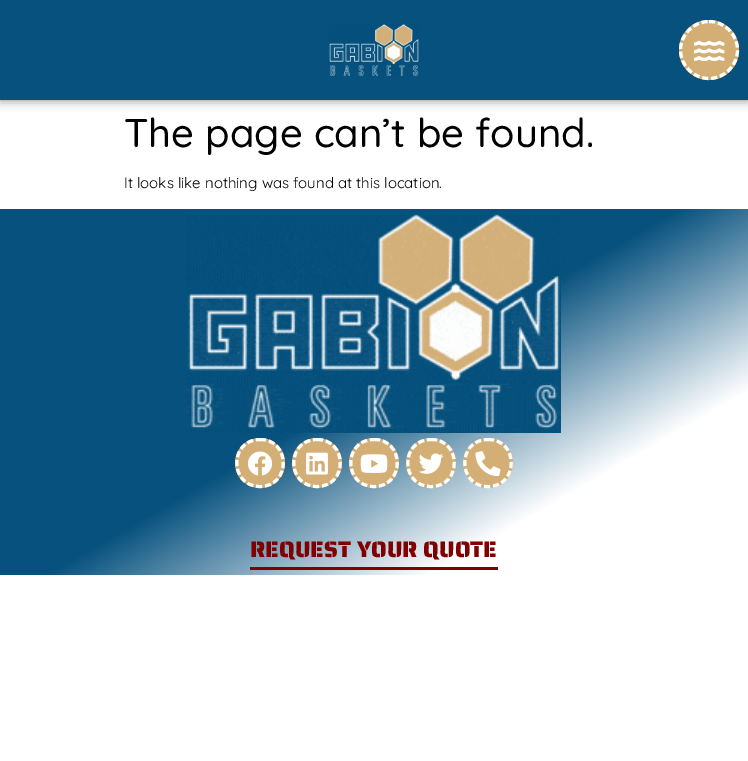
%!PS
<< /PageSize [748 761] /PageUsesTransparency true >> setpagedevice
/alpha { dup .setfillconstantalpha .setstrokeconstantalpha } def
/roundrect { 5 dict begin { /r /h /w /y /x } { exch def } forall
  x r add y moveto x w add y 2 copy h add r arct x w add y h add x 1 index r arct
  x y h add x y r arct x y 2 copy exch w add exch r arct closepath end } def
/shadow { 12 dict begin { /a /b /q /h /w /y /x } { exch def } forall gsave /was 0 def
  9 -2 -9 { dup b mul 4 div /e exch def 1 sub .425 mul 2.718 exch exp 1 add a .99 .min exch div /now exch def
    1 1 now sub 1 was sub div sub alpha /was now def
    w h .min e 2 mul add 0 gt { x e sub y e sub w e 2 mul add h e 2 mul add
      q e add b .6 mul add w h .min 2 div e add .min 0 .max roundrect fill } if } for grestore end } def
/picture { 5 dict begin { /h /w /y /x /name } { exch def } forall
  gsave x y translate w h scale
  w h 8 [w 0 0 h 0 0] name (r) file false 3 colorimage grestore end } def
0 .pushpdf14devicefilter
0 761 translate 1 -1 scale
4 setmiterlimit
1 setgray
0 0 748 761 rectfill
0 setgray
0 0 748 100 0 5 0.5 shadow
0.024 0.318 0.49 setrgbcolor
0 0 748 100 rectfill
(img1.rgb) 329 24 90 52 picture
0.827 0.682 0.459 setrgbcolor
newpath 709 50 30 0 360 arc closepath fill
1 setgray
3 setlinewidth
[6 3] 0 setdash
newpath 709 21.5 moveto 724.5 21.5 737.5 34.5 737.5 50 curveto 737.5 65.5 724.5 78.5 709 78.5 curveto 693.5 78.5 680.5 65.5 680.5 50 curveto 680.5 34.5 693.5 21.5 709 21.5 curveto closepath stroke
(img2.rgb) 694 40 31 21 picture
/Quicksand-Medium [40 0 0 -40 0 0] selectfont
0 setgray
124 147 moveto (The page can’t be found.) show
/Quicksand-Regular [15 0 0 -15 0 0] selectfont
124 188 moveto (It looks like nothing was found at this location.) show
gsave newpath 0 209 moveto 748 209 lineto 748 575 lineto 0 575 lineto closepath clip newpath
<< /ShadingType 2 /ColorSpace /DeviceRGB /Coords [201 93 547 691] /Extend [true true] /Function << /FunctionType 3 /Domain [0 1] /Functions [<< /FunctionType 2 /Domain [0 1] /C0 [0.024 0.318 0.49] /C1 [0.024 0.318 0.49] /N 1 >> << /FunctionType 2 /Domain [0 1] /C0 [0.024 0.318 0.49] /C1 [1 1 1] /N 1 >> << /FunctionType 2 /Domain [0 1] /C0 [1 1 1] /C1 [1 1 1] /N 1 >>] /Bounds [0.49 0.77] /Encode [0 1 0 1 0 1] >> >> shfill grestore
(img3.rgb) 187 214 374 219 picture
0.827 0.682 0.459 setrgbcolor
newpath 260 463 25 0 360 arc closepath fill
1 setgray
newpath 260 439.5 moveto 291 439.5 291 486.5 260 486.5 curveto 229 486.5 229 439.5 260 439.5 curveto closepath stroke
(img4.rgb) 247 451 26 25 picture
0.827 0.682 0.459 setrgbcolor
newpath 317 463 25 0 360 arc closepath fill
1 setgray
newpath 317 439.5 moveto 348 439.5 348 486.5 317 486.5 curveto 286 486.5 286 439.5 317 439.5 curveto closepath stroke
(img5.rgb) 306 452 22 23 picture
0.827 0.682 0.459 setrgbcolor
newpath 374 463 25 0 360 arc closepath fill
1 setgray
newpath 374 439.5 moveto 405 439.5 405 486.5 374 486.5 curveto 343 486.5 343 439.5 374 439.5 curveto closepath stroke
(img6.rgb) 360 454 28 19 picture
0.827 0.682 0.459 setrgbcolor
newpath 431 463 25 0 360 arc closepath fill
1 setgray
newpath 431 439.5 moveto 462 439.5 462 486.5 431 486.5 curveto 400 486.5 400 439.5 431 439.5 curveto closepath stroke
(img7.rgb) 418 453 26 21 picture
0.827 0.682 0.459 setrgbcolor
newpath 488 463 25 0 360 arc closepath fill
1 setgray
newpath 488 439.5 moveto 519 439.5 519 486.5 488 486.5 curveto 457 486.5 457 439.5 488 439.5 curveto closepath stroke
(img8.rgb) 475 451 26 26 picture
/SairaStencilOne-Regular [22.5 0 0 -22.5 0 0] selectfont
0.502 0 0 setrgbcolor
250 557 moveto (REQUEST YOUR QUOTE) show
250 567 248 3 rectfill
.poppdf14devicefilter showpage
